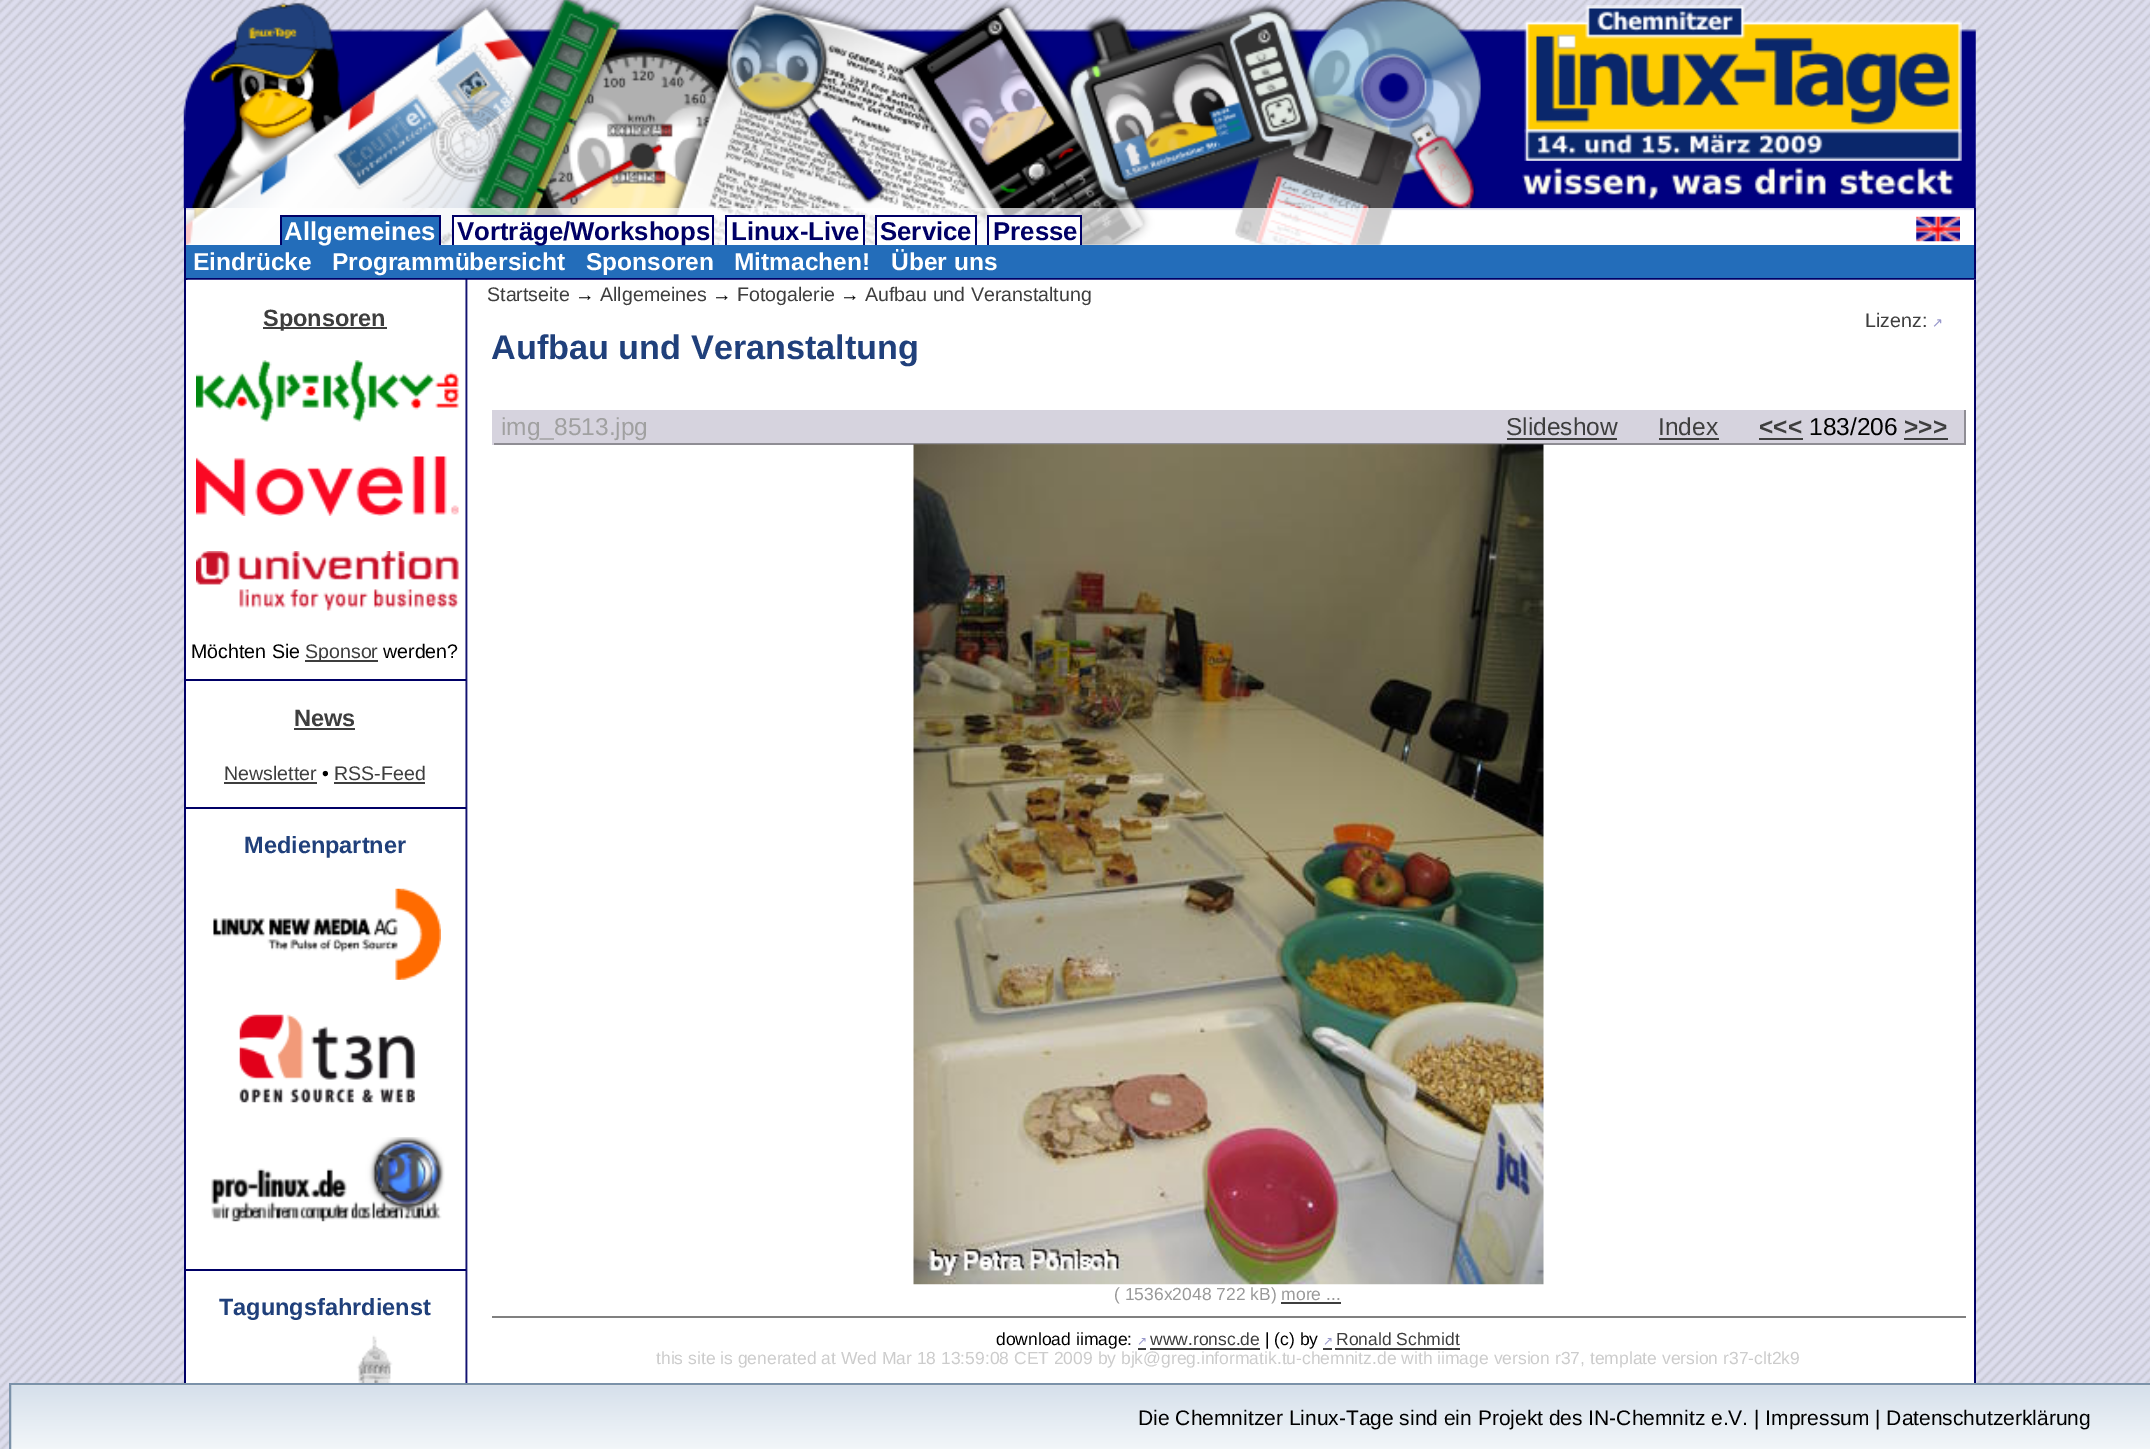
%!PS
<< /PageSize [2150 1449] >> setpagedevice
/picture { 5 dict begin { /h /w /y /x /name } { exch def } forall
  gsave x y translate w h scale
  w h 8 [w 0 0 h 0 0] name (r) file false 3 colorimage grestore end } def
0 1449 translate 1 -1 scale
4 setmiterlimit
0.867 0.867 0.933 setrgbcolor
0 0 2150 1449 rectfill
(img1.rgb) 0 0 2150 1449 picture
(img2.rgb) 183 0 1793 208 picture
(img3.rgb) 1524 5 438 156 picture
(img4.rgb) 1522 167 432 33 picture
1 setgray
186 208 1788 37 rectfill
(img5.rgb) 183 208 1791 37 picture
0 0 0.4 setrgbcolor
1974 208 2 72 rectfill
184 208 2 37 rectfill
0.137 0.427 0.729 setrgbcolor
282 217 157 28 rectfill
186 245 1788 33 rectfill
/LiberationSans-Bold [25.75 0 0 -25.75 0 0] selectfont
1 setgray
284 240 moveto (Allgemeines) show
0 0 0.4 setrgbcolor
280 215 161 2 rectfill
439 215 2 30 rectfill
280 215 2 30 rectfill
1 setgray
454 217 258 28 rectfill
0 0 0.4 setrgbcolor
457 240 moveto (Vorträge/Workshops) show
452 215 262 2 rectfill
712 215 2 30 rectfill
452 215 2 30 rectfill
1 setgray
727 217 136 28 rectfill
0 0 0.4 setrgbcolor
731 240 moveto (Linux-Live) show
725 215 140 2 rectfill
863 215 2 30 rectfill
725 215 2 30 rectfill
1 setgray
877 217 98 28 rectfill
0 0 0.4 setrgbcolor
880 240 moveto (Service) show
875 215 102 2 rectfill
975 215 2 30 rectfill
875 215 2 30 rectfill
1 setgray
989 217 91 28 rectfill
0 0 0.4 setrgbcolor
993 240 moveto (Presse) show
987 215 95 2 rectfill
1080 215 2 30 rectfill
987 215 2 30 rectfill
(img6.rgb) 1916 216 44 26 picture
184 278 1792 2 rectfill
184 245 2 1138 rectfill
/LiberationSans-Bold [24.5 0 0 -24.5 0 0] selectfont
1 setgray
193 270 moveto (Eindrücke) show
332 270 moveto (Programmübersicht) show
586 270 moveto (Sponsoren) show
734 270 moveto (Mitmachen!) show
891 270 moveto (Über uns) show
186 280 2 1103 rectfill
(img7.rgb) 186 279 1790 1104 picture
0 0 0.4 setrgbcolor
1974 280 2 1103 rectfill
186 679 280 2 rectfill
0.243 setgray
263 327 124 2 rectfill
/LiberationSans-Bold [23.5 0 0 -23.5 0 0] selectfont
263 326 moveto (Sponsoren) show
(img8.rgb) 196 360 263 62 picture
(img9.rgb) 196 456 263 60 picture
(img10.rgb) 196 551 263 60 picture
/LiberationSans-Regular [19.6 0 0 -19.6 0 0] selectfont
0 setgray
191 658 moveto (Möchten Sie) show
0.243 setgray
305 660 73 2 rectfill
305 658 moveto (Sponsor) show
0 setgray
383 658 moveto (werden?) show
0 0 0.4 setrgbcolor
186 807 280 2 rectfill
/LiberationSans-Bold [23.5 0 0 -23.5 0 0] selectfont
0.243 setgray
294 726 moveto (News) show
294 728 61 2 rectfill
/LiberationSans-Regular [19.6 0 0 -19.6 0 0] selectfont
224 780 moveto (Newsletter) show
224 782 93 2 rectfill
0 setgray
322 780 moveto (•) show
0.243 setgray
334 780 moveto (RSS-Feed) show
334 782 91 2 rectfill
0 0 0.4 setrgbcolor
186 1269 280 2 rectfill
/LiberationSans-Bold [23.5 0 0 -23.5 0 0] selectfont
0.125 0.251 0.482 setrgbcolor
244 853 moveto (Medienpartner) show
(img11.rgb) 213 888 228 92 picture
(img12.rgb) 239 1014 176 89 picture
(img13.rgb) 211 1137 234 85 picture
219 1315 moveto (Tagungsfahrdienst) show
(img14.rgb) 356 1335 37 48 picture
/LiberationSans-Regular [19.6 0 0 -19.6 0 0] selectfont
0.243 setgray
487 301 moveto (Startseite) show
0 setgray
575 301 moveto (→) show
0.243 setgray
600 301 moveto (Allgemeines) show
0 setgray
712 301 moveto (→) show
0.243 setgray
737 301 moveto (Fotogalerie) show
0 setgray
840 301 moveto (→) show
0.243 setgray
865 301 moveto (Aufbau und Veranstaltung) show
1865 327 moveto (Lizenz:) show
/DejaVuSans-Regular [13 0 0 -13 0 0] selectfont
0.6 0.6 0.8 setrgbcolor
1932 327 moveto (↗) show
/LiberationSans-Bold [34.25 0 0 -34.25 0 0] selectfont
0.125 0.251 0.482 setrgbcolor
491 359 moveto (Aufbau und Veranstaltung) show
0.839 0.827 0.871 setrgbcolor
492 410 1473 1 rectfill
0.561 0.553 0.58 setrgbcolor
1964 410 2 35 rectfill
492 443 1473 2 rectfill
0.839 0.827 0.871 setrgbcolor
492 410 2 35 rectfill
494 411 1470 32 rectfill
/LiberationSans-Regular [24.5 0 0 -24.5 0 0] selectfont
0.627 setgray
501 435 moveto (img_8513.jpg) show
0.243 setgray
1506 435 moveto (Slideshow) show
1507 438 110 2 rectfill
1658 435 moveto (Index) show
1659 438 60 2 rectfill
/LiberationSans-Bold [24.5 0 0 -24.5 0 0] selectfont
1759 435 moveto (<<<) show
1759 438 44 2 rectfill
/LiberationSans-Regular [24.5 0 0 -24.5 0 0] selectfont
0 setgray
1809 435 moveto (183/206) show
/LiberationSans-Bold [24.5 0 0 -24.5 0 0] selectfont
0.243 setgray
1904 435 moveto (>>>) show
1904 438 44 2 rectfill
(img15.rgb) 913 444 631 841 picture
/LiberationSans-Regular [17.5 0 0 -17.5 0 0] selectfont
0.6 setgray
1114 1300 moveto (\( 1536x2048 722 kB\) more ...) show
0.243 setgray
1281 1302 60 2 rectfill
0.502 setgray
492 1316 1474 2 rectfill
0 setgray
996 1345 moveto (download iimage:) show
/DejaVuSans-Regular [12 0 0 -12 0 0] selectfont
0.6 0.6 0.8 setrgbcolor
1137 1345 moveto (↗) show
0.243 setgray
1138 1348 8 2 rectfill
1150 1348 110 2 rectfill
/LiberationSans-Regular [17.5 0 0 -17.5 0 0] selectfont
1150 1345 moveto (www.ronsc.de) show
0 setgray
1265 1345 moveto (| \(c\) by) show
/DejaVuSans-Regular [12 0 0 -12 0 0] selectfont
0.6 0.6 0.8 setrgbcolor
1323 1345 moveto (↗) show
0.243 setgray
1323 1348 9 2 rectfill
1335 1348 125 2 rectfill
/LiberationSans-Regular [17.5 0 0 -17.5 0 0] selectfont
1336 1345 moveto (Ronald Schmidt) show
0.8 setgray
656 1364 moveto (this site is generated at Wed Mar 18 13:59:08 CET 2009 by bjk@greg.informatik.tu-chemnitz.de with iimage version r37, template version r37-clt2k9) show
gsave newpath 11 1386 moveto 2150 1386 lineto 2150 1449 lineto 11 1449 lineto closepath clip newpath
<< /ShadingType 2 /ColorSpace /DeviceRGB /Coords [1086 1386 1086 1449] /Extend [true true] /Function << /FunctionType 2 /Domain [0 1] /C0 [0.839 0.878 0.922] /C1 [0.949 0.965 0.976] /N 1 >> >> shfill grestore
1 setgray
11 1385 2139 1 rectfill
0.482 0.573 0.663 setrgbcolor
2 setlinewidth
10 1384 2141 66 rectstroke
/LiberationSans-Regular [21 0 0 -21 0 0] selectfont
0 setgray
1138 1425 moveto (Die Chemnitzer Linux-Tage sind ein Projekt des IN-Chemnitz e.V. | Impressum | Datenschutzerklärung) show
showpage
